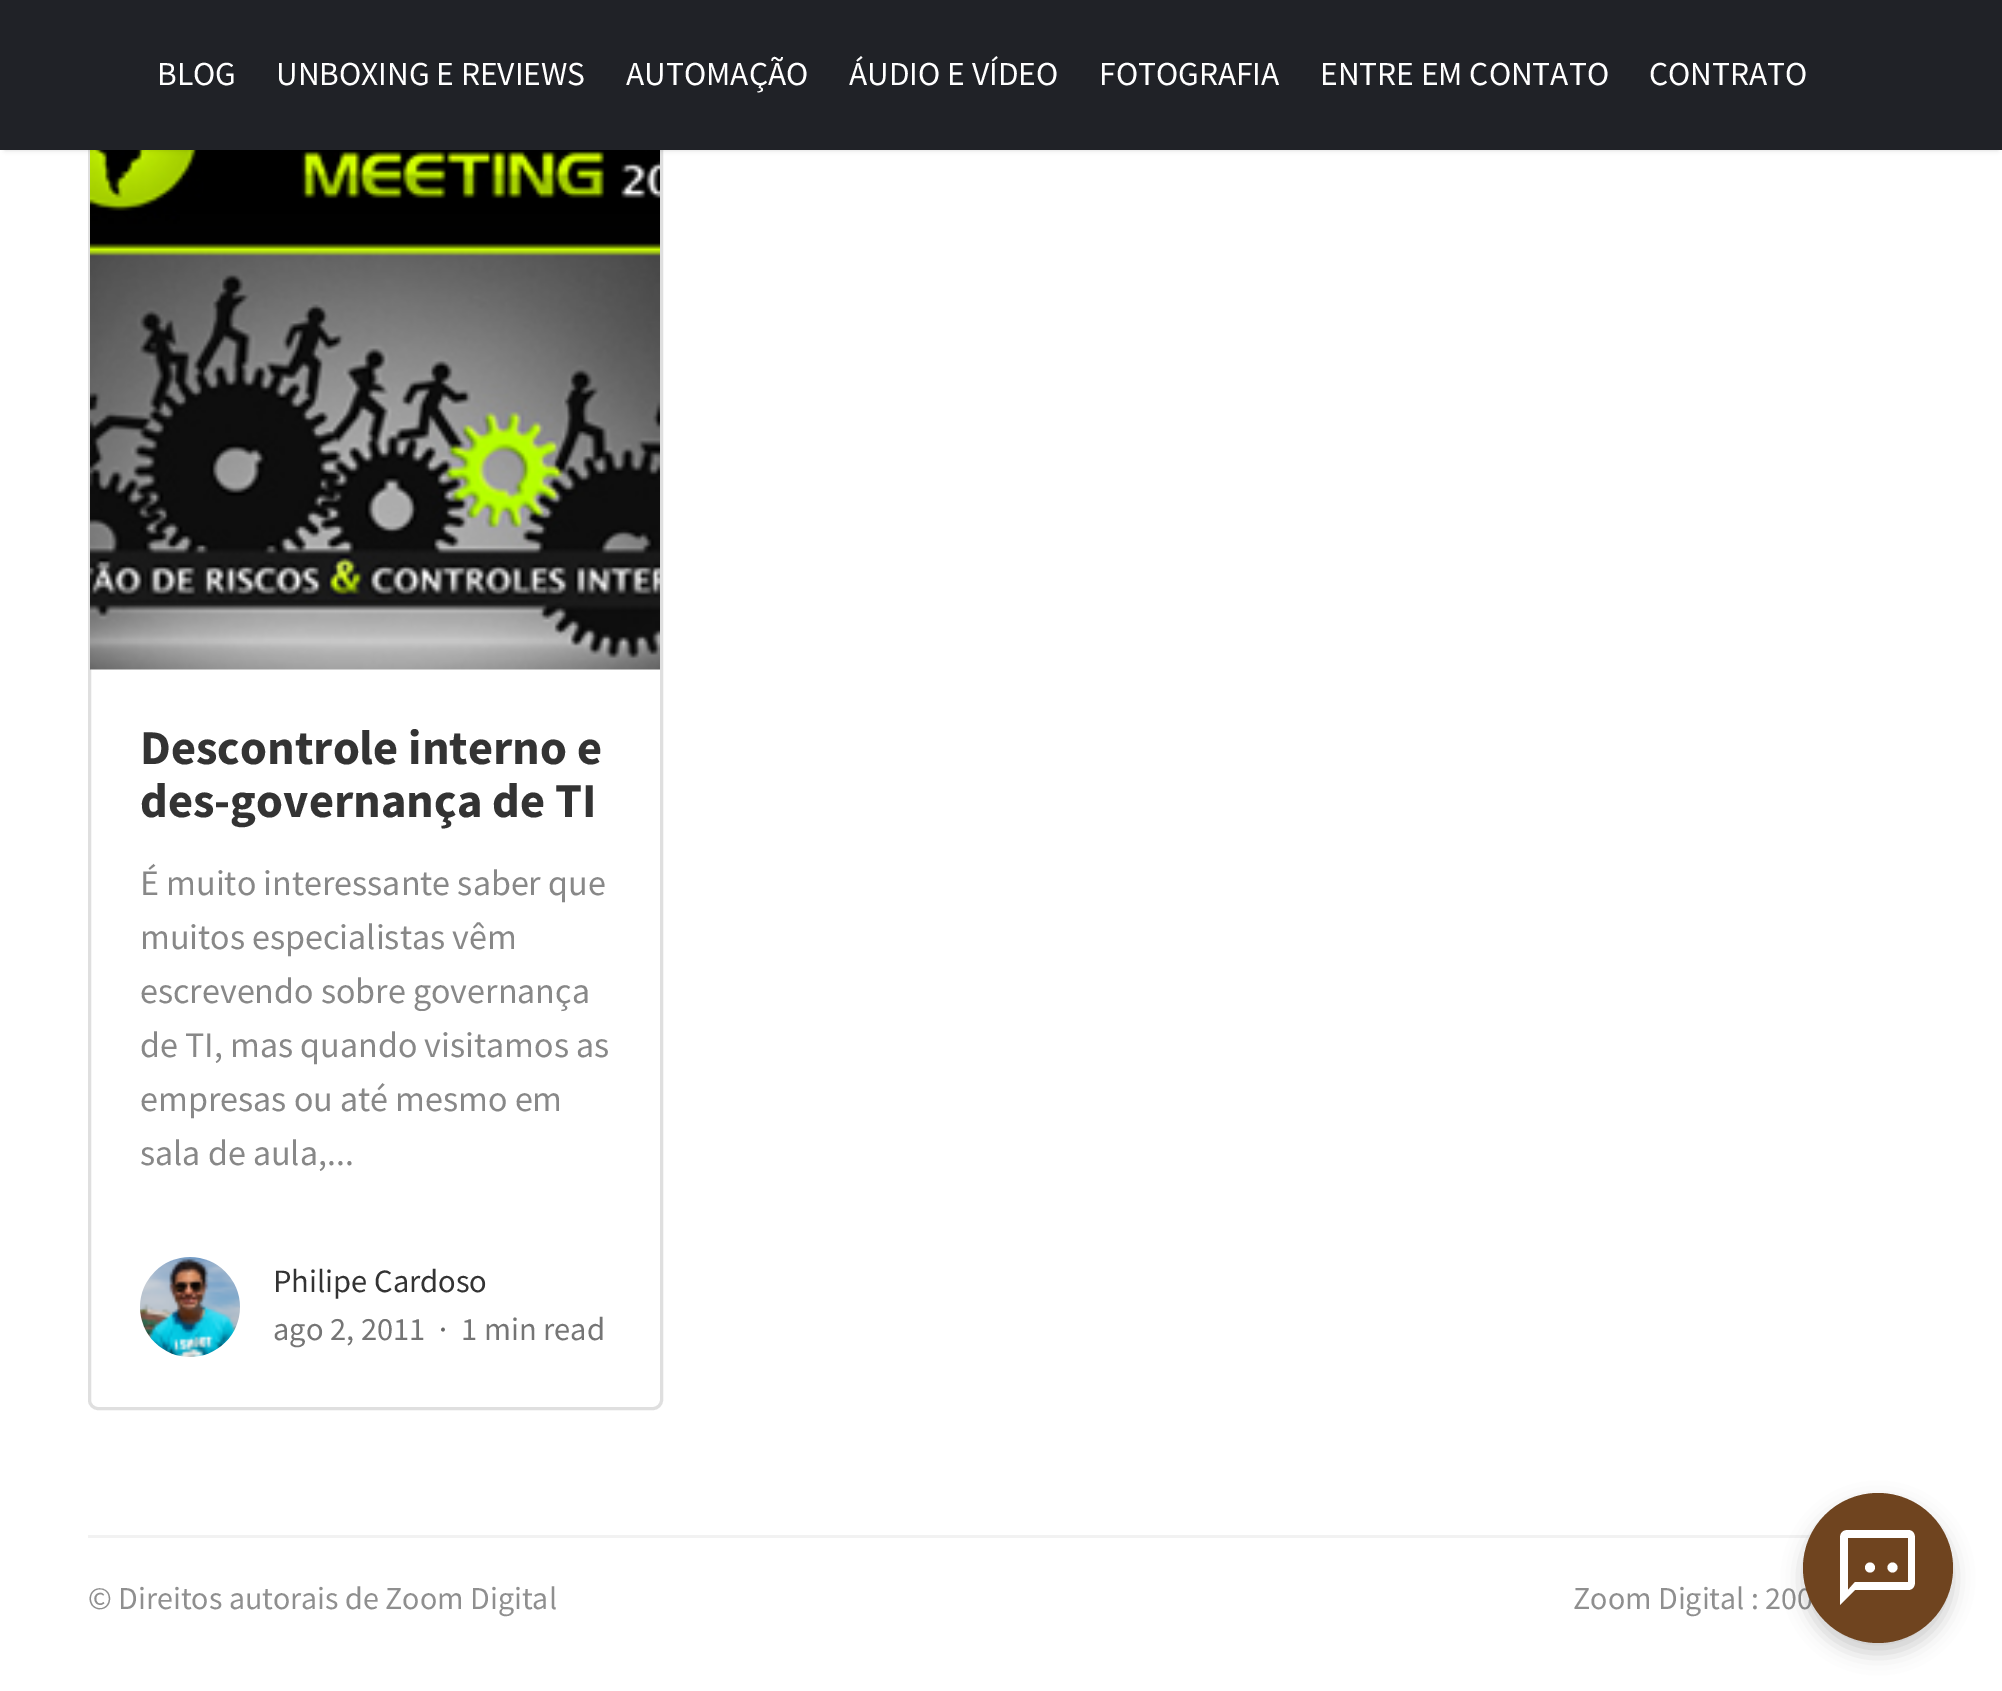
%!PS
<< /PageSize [2002 1691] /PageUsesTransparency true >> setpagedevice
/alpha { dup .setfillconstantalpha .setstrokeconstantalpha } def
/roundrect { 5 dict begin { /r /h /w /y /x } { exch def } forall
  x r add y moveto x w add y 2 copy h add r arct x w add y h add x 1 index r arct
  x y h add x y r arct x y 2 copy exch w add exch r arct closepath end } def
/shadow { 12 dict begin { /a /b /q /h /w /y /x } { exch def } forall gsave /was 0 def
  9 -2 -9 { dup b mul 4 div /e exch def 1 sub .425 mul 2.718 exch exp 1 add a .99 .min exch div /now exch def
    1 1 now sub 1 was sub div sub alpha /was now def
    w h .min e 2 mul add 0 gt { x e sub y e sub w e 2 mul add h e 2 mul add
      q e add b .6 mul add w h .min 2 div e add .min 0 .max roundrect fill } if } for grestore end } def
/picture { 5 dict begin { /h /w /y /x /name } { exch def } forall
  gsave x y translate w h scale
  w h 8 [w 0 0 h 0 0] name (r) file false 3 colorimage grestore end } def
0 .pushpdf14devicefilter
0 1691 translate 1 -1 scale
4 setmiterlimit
1 setgray
0 0 2002 1691 rectfill
0.875 setgray
3 setlinewidth
89.5 19.5 572 1389 8.5 roundrect stroke
(img1.rgb) 90 150 570 520 picture
0 setgray
5 -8 1993 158 0 2.5 0.15 shadow
0.125 0.133 0.153 setrgbcolor
0 0 2002 150 rectfill
/SourceSansPro-Regular [33.5 0 0 -33.5 0 0] selectfont
1 setgray
157 85 moveto (BLOG) show
276 85 moveto (UNBOXING E REVIEWS) show
626 85 moveto (AUTOMAÇÃO) show
849 85 moveto (ÁUDIO E VÍDEO) show
1099 85 moveto (FOTOGRAFIA) show
1320 85 moveto (ENTRE EM CONTATO) show
1649 85 moveto (CONTRATO) show
/SourceSansPro-Bold [48.5 0 0 -48.5 0 0] selectfont
0.2 setgray
140 764 moveto (Descontrole interno e) show
140 817 moveto (des-governança de TI) show
/SourceSansPro-Regular [36 0 0 -36 0 0] selectfont
0.533 setgray
140 895 moveto (É muito interessante saber que) show
140 949 moveto (muitos especialistas vêm) show
140 1003 moveto (escrevendo sobre governança) show
140 1057 moveto (de TI, mas quando visitamos as) show
140 1111 moveto (empresas ou até mesmo em) show
140 1165 moveto (sala de aula,...) show
(img2.rgb) 140 1257 100 100 picture
/SourceSansPro-Regular [32.5 0 0 -32.5 0 0] selectfont
0.2 setgray
273 1292 moveto (Philipe Cardoso) show
0.459 setgray
273 1340 moveto (ago 2, 2011) show
0.4 setgray
439 1340 moveto (·) show
0.459 setgray
461 1340 moveto (1 min read) show
0.949 setgray
88 1535 1723 3 rectfill
/SourceSansPro-Regular [32 0 0 -32 0 0] selectfont
0.561 setgray
88 1609 moveto (© Direitos autorais de Zoom Digital) show
1573 1609 moveto (Zoom Digital : 200) show
0 setgray
1803 1503 150 150 75 10 0.2 shadow
0.435 0.267 0.122 setrgbcolor
newpath 1878 1568 75 0 360 arc closepath fill
1 setgray
newpath 1908 1530 moveto 1848 1530 lineto 1843 1530 1840 1533 1840 1538 curveto 1840 1605 lineto 1855 1590 lineto 1908 1590 lineto 1912 1590 1915 1587 1915 1582 curveto 1915 1538 lineto 1915 1533 1912 1530 1908 1530 curveto closepath 1908 1582 moveto 1855 1582 lineto 1848 1590 lineto 1848 1538 lineto 1908 1538 lineto closepath fill
newpath 1870 1567.5 5 0 360 arc closepath fill
newpath 1892.5 1567.5 5 0 360 arc closepath fill
.poppdf14devicefilter showpage
